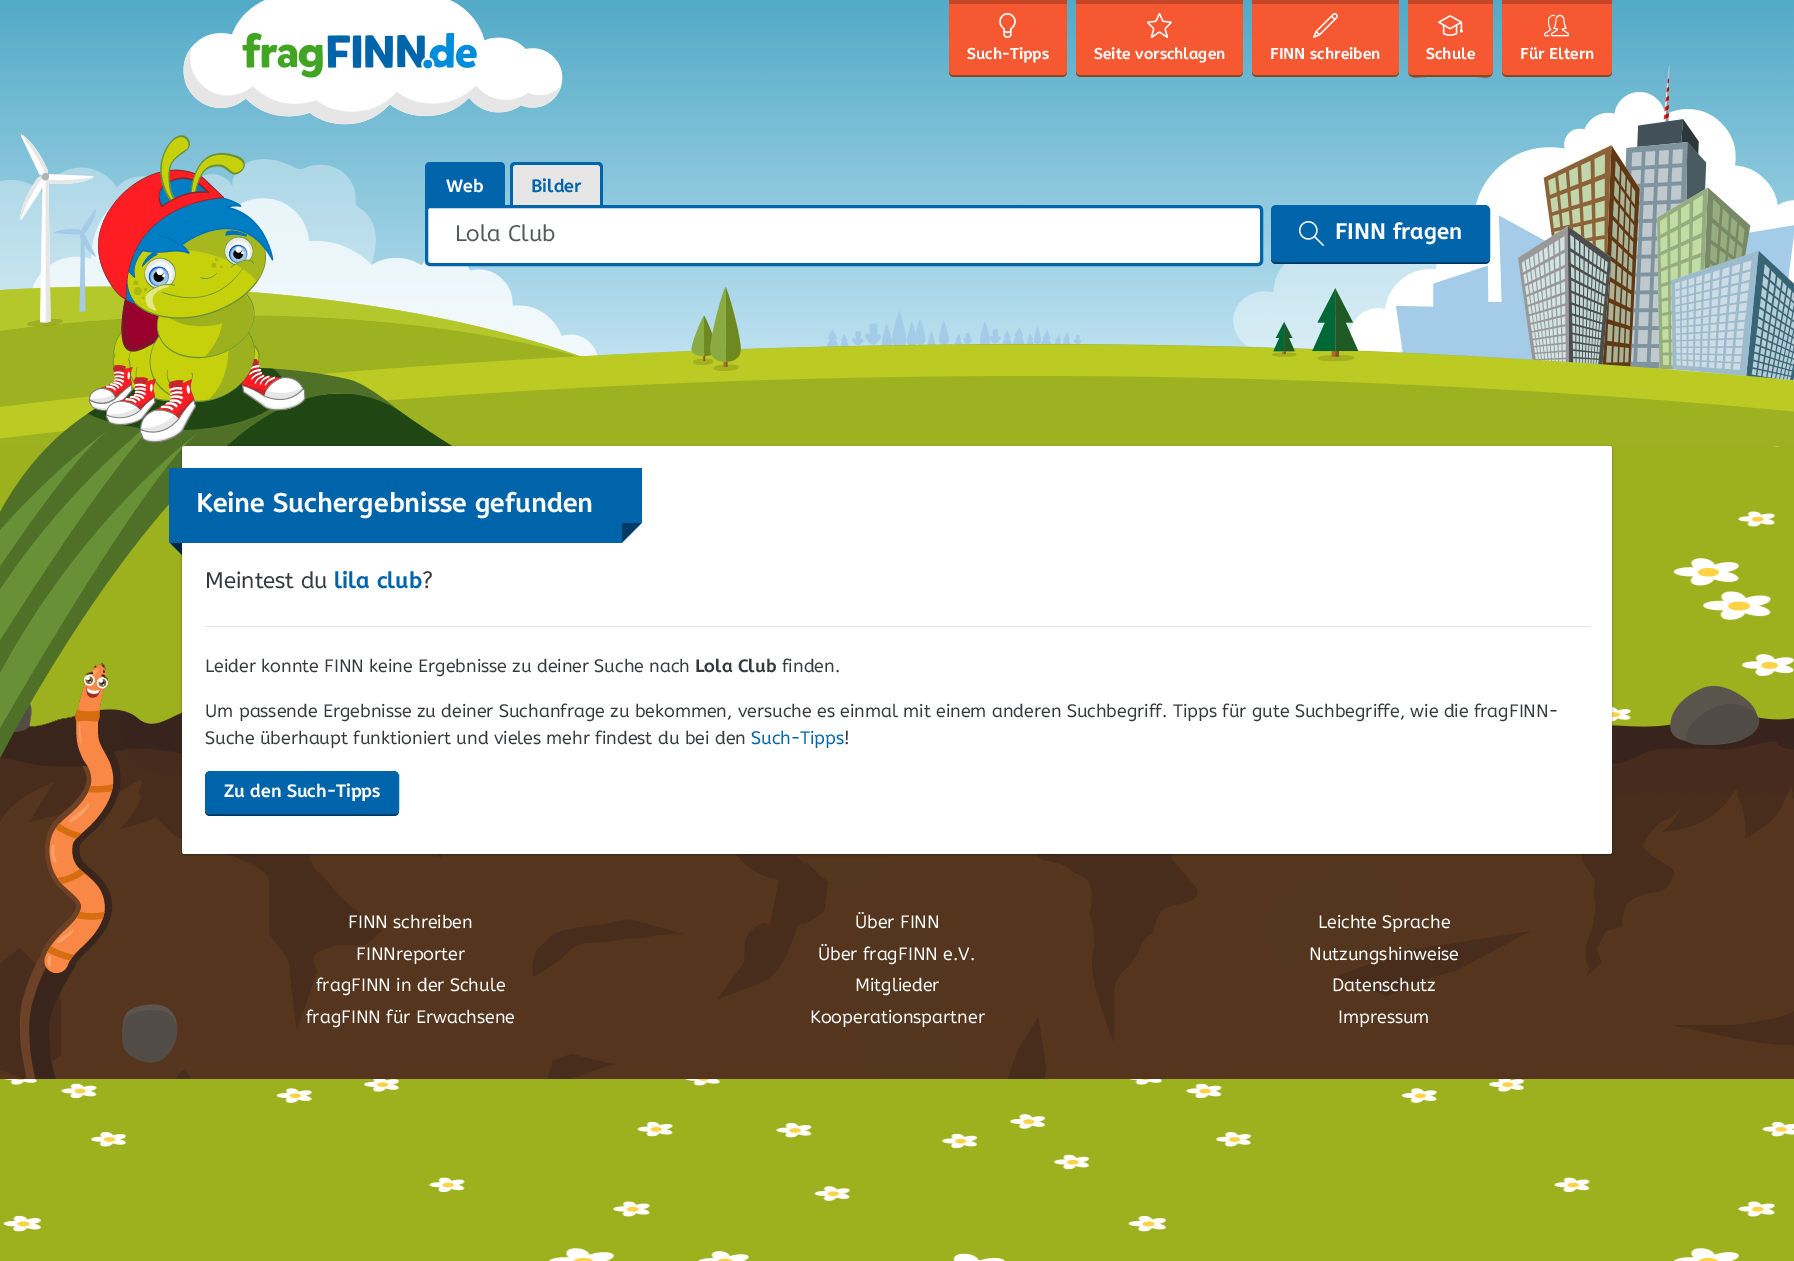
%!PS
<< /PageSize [1794 1261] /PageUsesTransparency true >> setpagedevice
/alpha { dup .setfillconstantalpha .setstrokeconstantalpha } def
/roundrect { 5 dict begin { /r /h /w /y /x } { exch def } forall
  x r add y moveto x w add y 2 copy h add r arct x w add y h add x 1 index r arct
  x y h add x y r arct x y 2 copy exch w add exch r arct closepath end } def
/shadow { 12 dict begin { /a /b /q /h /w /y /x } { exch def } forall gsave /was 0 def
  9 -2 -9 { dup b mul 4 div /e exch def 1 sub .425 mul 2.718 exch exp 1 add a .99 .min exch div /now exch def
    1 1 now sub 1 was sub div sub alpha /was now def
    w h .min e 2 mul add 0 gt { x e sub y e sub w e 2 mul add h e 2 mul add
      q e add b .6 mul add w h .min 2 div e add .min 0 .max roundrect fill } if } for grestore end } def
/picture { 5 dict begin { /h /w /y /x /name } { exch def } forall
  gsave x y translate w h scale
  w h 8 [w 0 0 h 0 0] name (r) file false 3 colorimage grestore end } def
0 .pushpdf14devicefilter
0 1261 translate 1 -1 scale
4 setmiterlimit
0.616 0.694 0.122 setrgbcolor
0 0 1794 1261 rectfill
(img1.rgb) 3 446 1791 815 picture
(img2.rgb) 0 0 1794 446 picture
(img3.rgb) 27 180 59 147 picture
(img5.rgb) 54 209 42 48 picture
(img4.rgb) 20 134 74 86 picture
(img6.rgb) 183 0 380 125 picture
0.557 0.278 0.106 setrgbcolor
newpath 949 70 moveto 949 72 lineto 949 75 951 77 954 77 curveto 1062 77 lineto 1065 77 1067 75 1067 72 curveto 1067 70 lineto 1067 73 1065 75 1062 75 curveto 954 75 lineto 951 75 949 73 949 70 curveto closepath fill
0.965 0.345 0.196 setrgbcolor
newpath 949 -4 moveto 1067 -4 lineto 1067 70 lineto 1067 73 1065 75 1062 75 curveto 954 75 lineto 951 75 949 73 949 70 curveto closepath fill
0.773 0.275 0.157 setrgbcolor
949 0 118 4 rectfill
(img7.rgb) 999 13 17 25 picture
/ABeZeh-Bold [15.75 0 0 -15.75 0 0] selectfont
1 setgray
967 59 moveto (Such-Tipps) show
0.557 0.278 0.106 setrgbcolor
newpath 1076 70 moveto 1076 72 lineto 1076 75 1078 77 1081 77 curveto 1238 77 lineto 1241 77 1243 75 1243 72 curveto 1243 70 lineto 1243 73 1241 75 1238 75 curveto 1081 75 lineto 1078 75 1076 73 1076 70 curveto closepath fill
0.965 0.345 0.196 setrgbcolor
newpath 1076 -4 moveto 1243 -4 lineto 1243 70 lineto 1243 73 1241 75 1238 75 curveto 1081 75 lineto 1078 75 1076 73 1076 70 curveto closepath fill
0.773 0.275 0.157 setrgbcolor
1076 0 167 4 rectfill
(img8.rgb) 1147 13 25 25 picture
1 setgray
1094 59 moveto (Seite vorschlagen) show
0.557 0.278 0.106 setrgbcolor
newpath 1252 70 moveto 1252 72 lineto 1252 75 1254 77 1257 77 curveto 1394 77 lineto 1397 77 1399 75 1399 72 curveto 1399 70 lineto 1399 73 1397 75 1394 75 curveto 1257 75 lineto 1254 75 1252 73 1252 70 curveto closepath fill
0.965 0.345 0.196 setrgbcolor
newpath 1252 -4 moveto 1399 -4 lineto 1399 70 lineto 1399 73 1397 75 1394 75 curveto 1257 75 lineto 1254 75 1252 73 1252 70 curveto closepath fill
0.773 0.275 0.157 setrgbcolor
1252 0 147 4 rectfill
(img9.rgb) 1313 13 25 25 picture
1 setgray
1270 59 moveto (FINN schreiben) show
0.557 0.278 0.106 setrgbcolor
newpath 1408 70 moveto 1408 80 1416 77 1426 77 curveto 1476 77 lineto 1485 77 1493 80 1493 70 curveto 1493 73 1491 75 1488 75 curveto 1413 75 lineto 1410 75 1408 73 1408 70 curveto closepath fill
0.965 0.345 0.196 setrgbcolor
newpath 1408 -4 moveto 1493 -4 lineto 1493 70 lineto 1493 73 1491 75 1488 75 curveto 1413 75 lineto 1410 75 1408 73 1408 70 curveto closepath fill
0.773 0.275 0.157 setrgbcolor
1408 0 85 4 rectfill
(img10.rgb) 1438 15 25 21 picture
1 setgray
1426 59 moveto (Schule) show
0.557 0.278 0.106 setrgbcolor
newpath 1502 70 moveto 1502 72 lineto 1502 75 1504 77 1507 77 curveto 1607 77 lineto 1610 77 1612 75 1612 72 curveto 1612 70 lineto 1612 73 1610 75 1607 75 curveto 1507 75 lineto 1504 75 1502 73 1502 70 curveto closepath fill
0.965 0.345 0.196 setrgbcolor
newpath 1502 -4 moveto 1612 -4 lineto 1612 70 lineto 1612 73 1610 75 1607 75 curveto 1507 75 lineto 1504 75 1502 73 1502 70 curveto closepath fill
0.773 0.275 0.157 setrgbcolor
1502 0 110 4 rectfill
(img11.rgb) 1544 14 25 23 picture
1 setgray
1520 59 moveto (Für Eltern) show
(img14.rgb) 0 663 1794 416 picture
(img13.rgb) 0 135 453 623 picture
0 0.392 0.667 setrgbcolor
newpath 430.5 165 moveto 499.5 165 lineto 501 165 502 166 502 167.5 curveto 502 210 lineto 428 210 lineto 428 167.5 lineto 428 166 429 165 430.5 165 curveto closepath fill
newpath 430 162 moveto 500 162 lineto 503 162 505 164 505 167 curveto 505 210 lineto 425 210 lineto 425 167 lineto 425 164 427 162 430 162 curveto closepath 430 165 moveto 500 165 lineto 501 165 502 166 502 167 curveto 502 210 lineto 428 210 lineto 428 167 lineto 428 166 429 165 430 165 curveto closepath eofill
/ABeZeh-Bold [18 0 0 -18 0 0] selectfont
1 setgray
446 192 moveto (Web) show
0.902 setgray
newpath 515.5 165 moveto 597.5 165 lineto 599 165 600 166 600 167.5 curveto 600 210 lineto 513 210 lineto 513 167.5 lineto 513 166 514 165 515.5 165 curveto closepath fill
0 0.392 0.667 setrgbcolor
newpath 515 162 moveto 598 162 lineto 601 162 603 164 603 167 curveto 603 210 lineto 510 210 lineto 510 167 lineto 510 164 512 162 515 162 curveto closepath 515 165 moveto 598 165 lineto 599 165 600 166 600 167 curveto 600 210 lineto 513 210 lineto 513 167 lineto 513 166 514 165 515 165 curveto closepath eofill
531 192 moveto (Bilder) show
1 setgray
426.5 206.5 835 58 3.5 roundrect gsave fill grestore
0 0.392 0.667 setrgbcolor
3 setlinewidth
stroke
/ABeZeh-Regular [22.5 0 0 -22.5 0 0] selectfont
0.333 0.349 0.361 setrgbcolor
455 241 moveto (Lola Club) show
0 0.216 0.369 setrgbcolor
newpath 1271 257 moveto 1271 259 lineto 1271 262 1273 264 1276 264 curveto 1485 264 lineto 1488 264 1490 262 1490 259 curveto 1490 257 lineto 1490 260 1488 262 1485 262 curveto 1276 262 lineto 1273 262 1271 260 1271 257 curveto closepath fill
0 0.392 0.667 setrgbcolor
1271.5 205.5 218 56 4.5 roundrect gsave fill grestore
1 setlinewidth
stroke
(img12.rgb) 1299 221 25 25 picture
/ABeZeh-Bold [22.5 0 0 -22.5 0 0] selectfont
1 setgray
1335 239 moveto (FINN fragen) show
0 0.157 0.267 setrgbcolor
newpath 182 542 moveto 182 555 lineto 169 542 lineto closepath fill
0 setgray
182 447 1430 408 2.5 1 0.24 shadow
182 447 1430 408 2.5 1.5 0.12 shadow
1 setgray
182 446 1430 408 2.5 roundrect fill
0 0.392 0.667 setrgbcolor
169 468 473 75 rectfill
/ABeZeh-Bold [27 0 0 -27 0 0] selectfont
1 setgray
196 512 moveto (Keine Suchergebnisse gefunden) show
0 0.235 0.4 setrgbcolor
newpath 622 523 moveto 642 523 lineto 622 543 lineto closepath fill
1 setgray
newpath 642 543 moveto 622 543 lineto 642 523 lineto closepath fill
0.902 setgray
205 626 1385 1 rectfill
/ABeZeh-Regular [22.5 0 0 -22.5 0 0] selectfont
0.216 0.227 0.235 setrgbcolor
205 588 moveto (Meintest du) show
/ABeZeh-Bold [22.5 0 0 -22.5 0 0] selectfont
0 0.392 0.667 setrgbcolor
334 588 moveto (lila club) show
/ABeZeh-Regular [22.5 0 0 -22.5 0 0] selectfont
0.216 0.227 0.235 setrgbcolor
422 588 moveto (?) show
/ABeZeh-Regular [18 0 0 -18 0 0] selectfont
205 672 moveto (Leider konnte FINN keine Ergebnisse zu deiner Suche nach) show
/ABeZeh-Bold [18 0 0 -18 0 0] selectfont
695 672 moveto (Lola Club) show
/ABeZeh-Regular [18 0 0 -18 0 0] selectfont
782 672 moveto (finden.) show
205 717 moveto (Um passende Ergebnisse zu deiner Suchanfrage zu bekommen, versuche es einmal mit einem anderen Suchbegriff. Tipps für gute Suchbegriffe, wie die fragFINN-) show
205 744 moveto (Suche überhaupt funktioniert und vieles mehr findest du bei den) show
0 0.392 0.667 setrgbcolor
751 744 moveto (Such-Tipps) show
0.216 0.227 0.235 setrgbcolor
844 744 moveto (!) show
0 0.216 0.369 setrgbcolor
newpath 205 809 moveto 205 811 lineto 205 814 207 816 210 816 curveto 394 816 lineto 397 816 399 814 399 811 curveto 399 809 lineto 399 812 397 814 394 814 curveto 210 814 lineto 207 814 205 812 205 809 curveto closepath fill
0 0.392 0.667 setrgbcolor
205.5 771.5 193 42 4.5 roundrect gsave fill grestore
stroke
/ABeZeh-Bold [18 0 0 -18 0 0] selectfont
1 setgray
224 797 moveto (Zu den Such-Tipps) show
/ABeZeh-Regular [18 0 0 -18 0 0] selectfont
348 928 moveto (FINN schreiben) show
356 960 moveto (FINNreporter) show
316 991 moveto (fragFINN in der Schule) show
306 1023 moveto (fragFINN für Erwachsene) show
855 928 moveto (Über FINN) show
818 960 moveto (Über fragFINN e.V.) show
855 991 moveto (Mitglieder) show
810 1023 moveto (Kooperationspartner) show
1318 928 moveto (Leichte Sprache) show
1309 960 moveto (Nutzungshinweise) show
1332 991 moveto (Datenschutz) show
1338 1023 moveto (Impressum) show
.poppdf14devicefilter showpage
